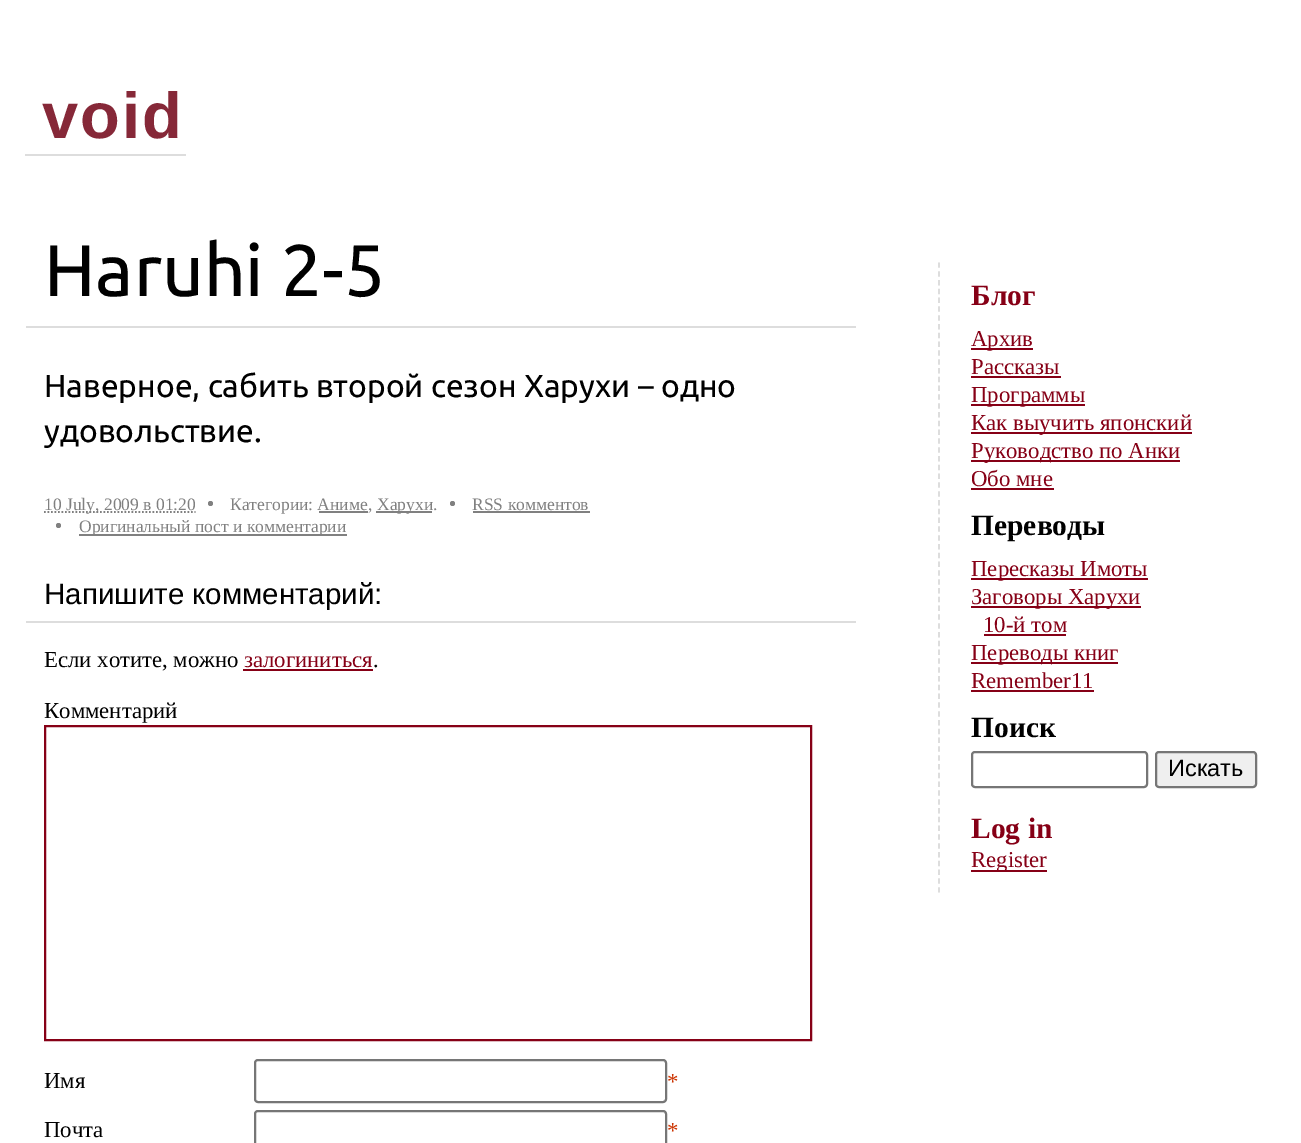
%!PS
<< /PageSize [1301 1143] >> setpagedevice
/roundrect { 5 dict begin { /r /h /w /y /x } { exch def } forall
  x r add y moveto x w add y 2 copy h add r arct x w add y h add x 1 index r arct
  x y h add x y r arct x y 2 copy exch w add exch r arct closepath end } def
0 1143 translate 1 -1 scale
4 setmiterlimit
1 setgray
0 0 1301 1143 rectfill
0.867 setgray
25 154 161 2 rectfill
/LiberationSans-Bold [65 0 0 -65 0 0] selectfont
0.525 0.157 0.22 setrgbcolor
42 138 moveto 2 0 (void) ashow
0.867 setgray
26 326 830 2 rectfill
/Ubuntu-Regular [73 0 0 -73 0 0] selectfont
0 setgray
44 296 moveto (Haruhi 2-5) show
/Ubuntu-Regular [31.85 0 0 -31.85 0 0] selectfont
44 397 moveto (Наверное, сабить второй сезон Харухи – одно) show
44 442 moveto (удовольствие.) show
0.502 setgray
1.8 setlinewidth
[1.75 1.75] 0 setdash
newpath 44 512 moveto 195.5 512 lineto stroke
/LiberationSerif-Regular [17.5 0 0 -17.5 0 0] selectfont
44 510 moveto (10 July, 2009 в 01:20) show
newpath 210.5 503.5 2.5 0 360 arc closepath fill
230 510 moveto (Категории: Аниме,) show
376 511 56 2 rectfill
377 510 moveto (Харухи.) show
319 511 49 2 rectfill
newpath 452.5 503.5 2.5 0 360 arc closepath fill
472 510 moveto (RSS комментов) show
473 511 117 2 rectfill
newpath 58.5 525.5 2.5 0 360 arc closepath fill
79 534 268 2 rectfill
79 532 moveto (Оригинальный пост и комментарии) show
0.867 setgray
26 621 830 2 rectfill
/LiberationSans-Regular [29.5 0 0 -29.5 0 0] selectfont
0 setgray
44 604 moveto (Напишите комментарий:) show
/LiberationSerif-Regular [22.75 0 0 -22.75 0 0] selectfont
44 667 moveto (Если хотите, можно) show
0.525 0 0.086 setrgbcolor
244 667 moveto (залогиниться) show
243 669 130 2 rectfill
0 setgray
373 667 moveto (.) show
44 718 moveto (Комментарий) show
0.525 0 0.086 setrgbcolor
2 setlinewidth
[] 0 setdash
45 726 766 314 rectstroke
0 setgray
44 1088 moveto (Имя) show
0.463 setgray
255 1060 411 42 3 roundrect stroke
0.8 0.2 0 setrgbcolor
667 1089 moveto (*) show
0 setgray
44 1137 moveto (Почта) show
0.463 setgray
255 1111 411 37 3 roundrect stroke
0.8 0.2 0 setrgbcolor
667 1138 moveto (*) show
0.867 setgray
1.8 setlinewidth
[5.25 3.55] 0 setdash
newpath 939 262.5 moveto 939 892.5 lineto stroke
/LiberationSerif-Bold [29.5 0 0 -29.5 0 0] selectfont
0.525 0 0.086 setrgbcolor
971 305 moveto (Блог) show
971 348 62 2 rectfill
/LiberationSerif-Regular [22.75 0 0 -22.75 0 0] selectfont
971 346 moveto (Архив) show
971 374 moveto (Рассказы) show
971 376 90 2 rectfill
971 404 114 2 rectfill
971 402 moveto (Программы) show
971 432 221 2 rectfill
971 430 moveto (Как выучить японский) show
971 460 209 2 rectfill
971 458 moveto (Руководство по Анки) show
971 486 moveto (Обо мне) show
971 488 83 2 rectfill
/LiberationSerif-Bold [29.5 0 0 -29.5 0 0] selectfont
0 setgray
971 535 moveto (Переводы) show
0.525 0 0.086 setrgbcolor
971 578 177 2 rectfill
/LiberationSerif-Regular [22.75 0 0 -22.75 0 0] selectfont
971 576 moveto (Пересказы Имоты) show
971 606 170 2 rectfill
971 604 moveto (Заговоры Харухи) show
983 632 moveto (10-й том) show
984 634 82 2 rectfill
971 662 147 2 rectfill
971 660 moveto (Переводы книг) show
971 688 moveto (Remember11) show
971 690 123 2 rectfill
/LiberationSerif-Bold [29.5 0 0 -29.5 0 0] selectfont
0 setgray
971 737 moveto (Поиск) show
0.463 setgray
2 setlinewidth
[] 0 setdash
972 752 175 35 3 roundrect stroke
0.937 setgray
1156 752 100 35 3 roundrect gsave fill grestore
0.463 setgray
stroke
/LiberationSans-Regular [23.5 0 0 -23.5 0 0] selectfont
0 setgray
1168 776 moveto (Искать) show
/LiberationSerif-Bold [29.5 0 0 -29.5 0 0] selectfont
0.525 0 0.086 setrgbcolor
971 838 moveto (Log in) show
971 870 76 2 rectfill
/LiberationSerif-Regular [22.75 0 0 -22.75 0 0] selectfont
971 867 moveto (Register) show
showpage
